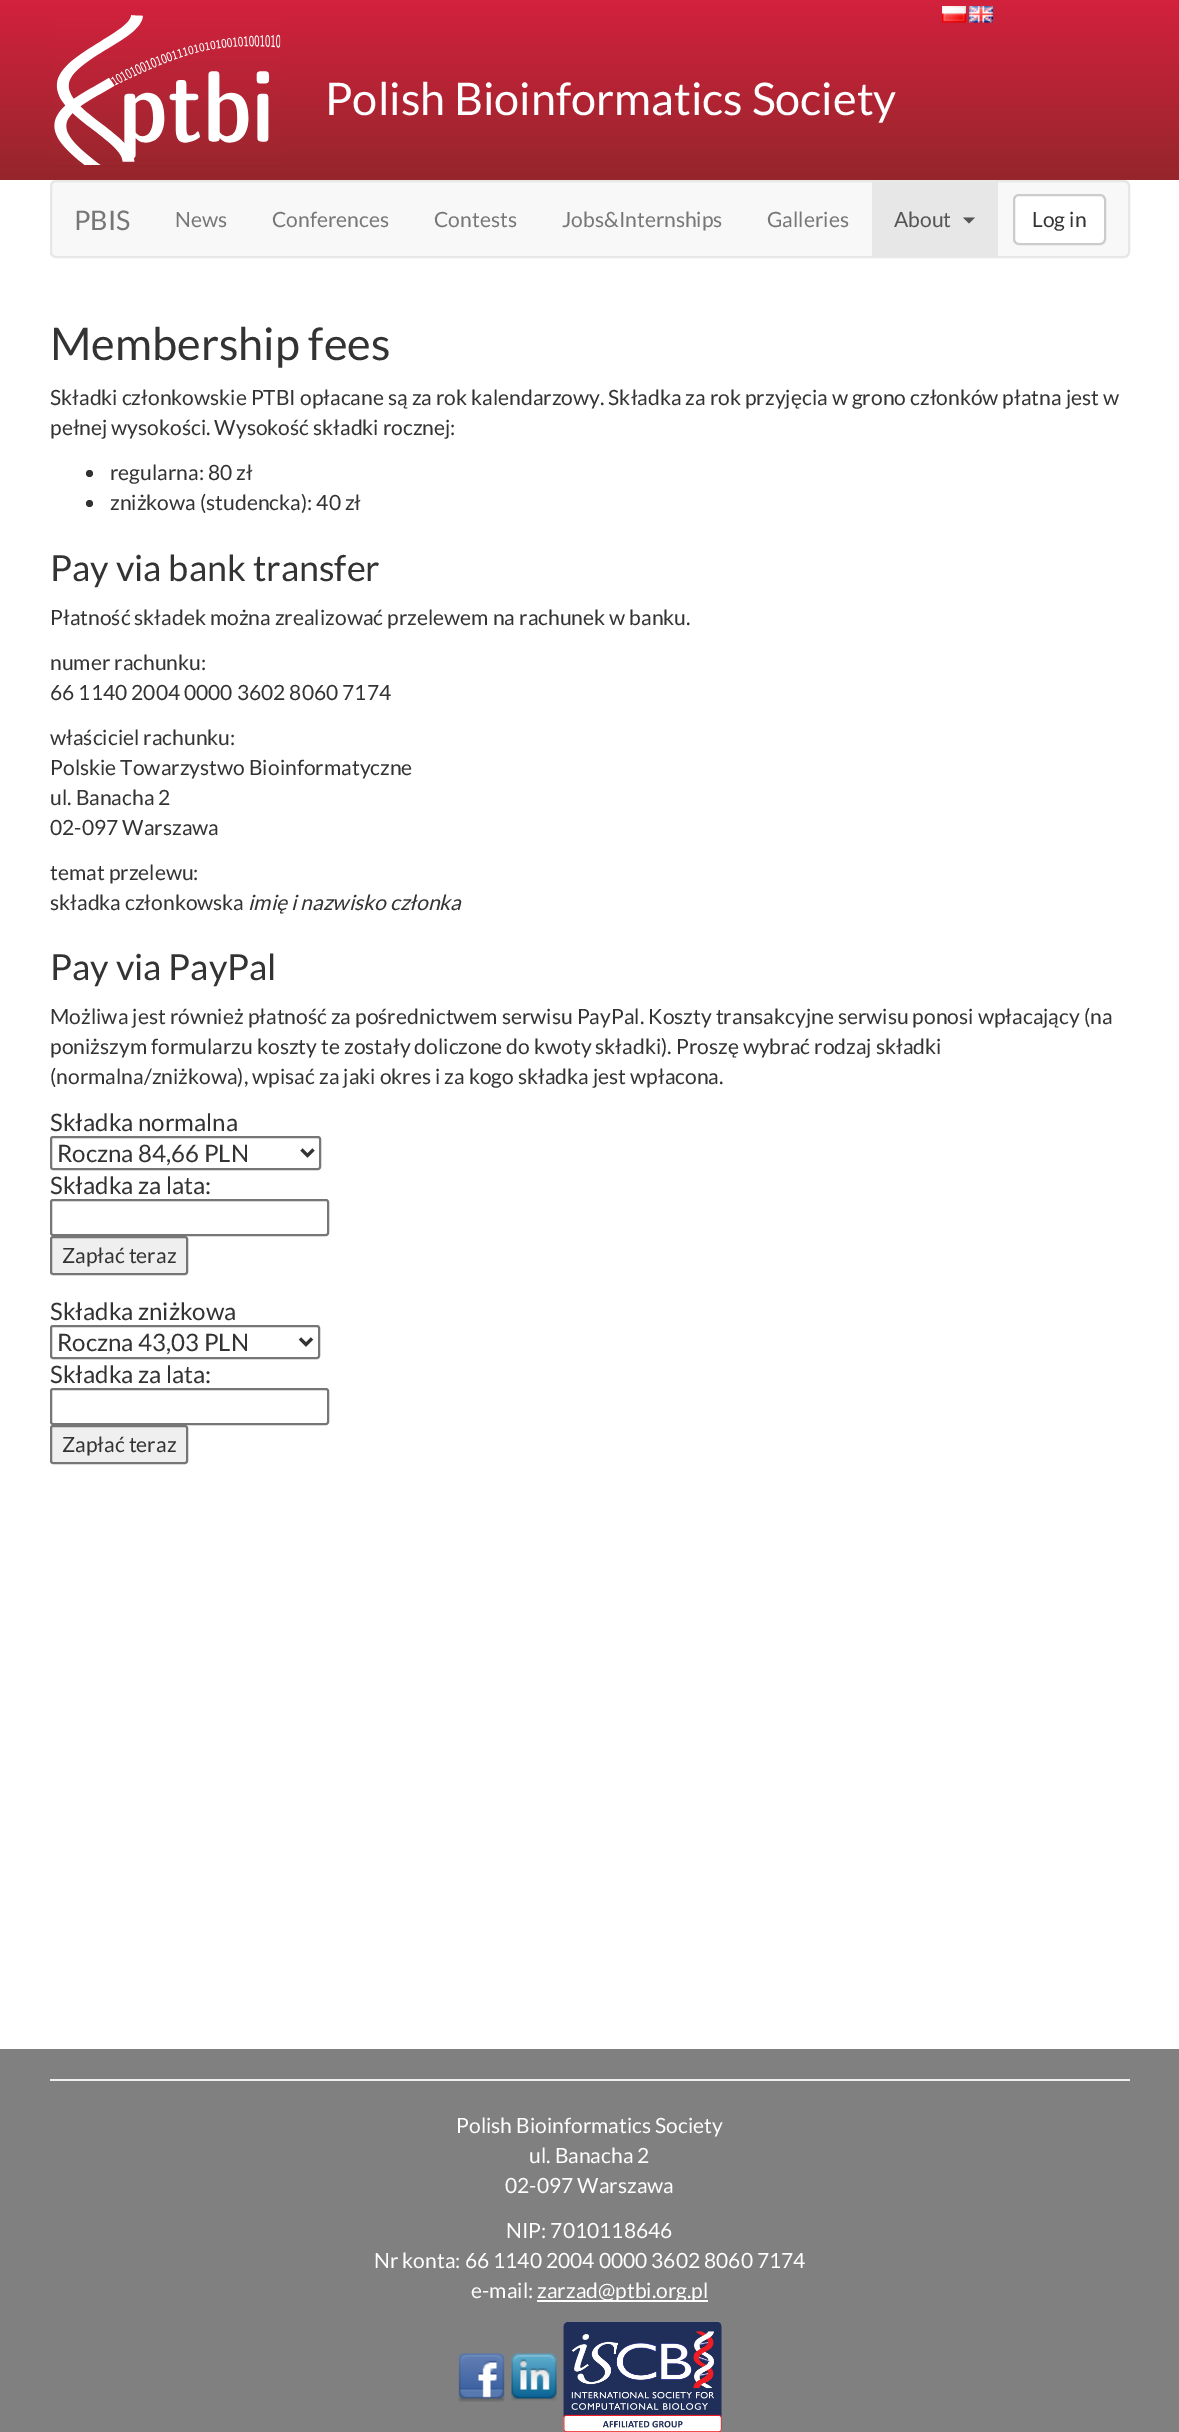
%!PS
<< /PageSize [1179 2432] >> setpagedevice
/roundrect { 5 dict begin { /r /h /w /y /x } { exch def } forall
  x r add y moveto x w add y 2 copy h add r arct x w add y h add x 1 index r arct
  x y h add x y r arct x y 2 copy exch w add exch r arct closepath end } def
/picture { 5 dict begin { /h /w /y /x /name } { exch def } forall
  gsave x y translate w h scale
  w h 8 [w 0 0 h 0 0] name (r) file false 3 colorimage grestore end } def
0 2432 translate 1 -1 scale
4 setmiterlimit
1 setgray
0 0 1179 2432 rectfill
gsave newpath 0 0 moveto 1179 0 lineto 1179 180 lineto 0 180 lineto closepath clip newpath
<< /ShadingType 2 /ColorSpace /DeviceRGB /Coords [590 0 590 180] /Extend [true true] /Function << /FunctionType 2 /Domain [0 1] /C0 [0.827 0.129 0.239] /C1 [0.584 0.149 0.169] /N 1 >> >> shfill grestore
(img1.rgb) 54 15 227 150 picture
/Lato-Regular [45 0 0 -45 0 0] selectfont
325 115 moveto (Polish Bioinformatics Society) show
(img2.rgb) 942 6 24 17 picture
(img3.rgb) 969 6 24 17 picture
0.973 setgray
51 181 1078 76 5 roundrect gsave fill grestore
0.906 setgray
2 setlinewidth
stroke
/Lato-Regular [27 0 0 -27 0 0] selectfont
0.467 setgray
74 230 moveto (PBIS) show
/Lato-Regular [21 0 0 -21 0 0] selectfont
175 227 moveto (News) show
272 227 moveto (Conferences) show
434 227 moveto (Contests) show
562 227 moveto (Jobs&Internships) show
767 227 moveto (Galleries) show
0.906 setgray
872 182 126 74 rectfill
0.333 setgray
894 227 moveto (About) show
newpath 963 217.5 moveto 975 217.5 lineto 969 223.5 lineto closepath fill
1 setgray
1014 195 91 49 5 roundrect gsave fill grestore
0.8 setgray
stroke
0.2 setgray
1032 227 moveto (Log in) show
/Lato-Regular [45 0 0 -45 0 0] selectfont
50 360 moveto (Membership fees) show
/Lato-Regular [21 0 0 -21 0 0] selectfont
50 405 moveto (Składki członkowskie PTBI opłacane są za rok kalendarzowy. Składka za rok przyjęcia w grono członków płatna jest w) show
50 435 moveto (pełnej wysokości. Wysokość składki rocznej:) show
newpath 89.5 473.5 3.5 0 360 arc closepath fill
110 480 moveto (regularna: 80 zł) show
newpath 89.5 503.5 3.5 0 360 arc closepath fill
110 510 moveto (zniżkowa \(studencka\): 40 zł) show
/Lato-Regular [36 0 0 -36 0 0] selectfont
50 581 moveto (Pay via bank transfer) show
/Lato-Regular [21 0 0 -21 0 0] selectfont
50 625 moveto (Płatność składek można zrealizować przelewem na rachunek w banku.) show
50 670 moveto (numer rachunku:) show
50 700 moveto (66 1140 2004 0000 3602 8060 7174) show
50 745 moveto (właściciel rachunku:) show
50 775 moveto (Polskie Towarzystwo Bioinformatyczne) show
50 805 moveto (ul. Banacha 2) show
50 835 moveto (02-097 Warszawa) show
50 880 moveto (temat przelewu:) show
50 910 moveto (składka członkowska) show
/Lato-Italic [21 0 0 -21 0 0] selectfont
248 910 moveto (imię i nazwisko członka) show
/Lato-Regular [36 0 0 -36 0 0] selectfont
50 980 moveto (Pay via PayPal) show
/Lato-Regular [21 0 0 -21 0 0] selectfont
50 1024 moveto (Możliwa jest również płatność za pośrednictwem serwisu PayPal. Koszty transakcyjne serwisu ponosi wpłacający \(na) show
50 1054 moveto (poniższym formularzu koszty te zostały doliczone do kwoty składki\). Proszę wybrać rodzaj składki) show
50 1084 moveto (\(normalna/zniżkowa\), wpisać za jaki okres i za kogo składka jest wpłacona.) show
/Lato-Regular [24 0 0 -24 0 0] selectfont
50 1131 moveto (Składka normalna) show
0.463 setgray
51 1137 269 32 2 roundrect stroke
0.2 setgray
3 setlinewidth
newpath 301.5 1149.5 moveto 307.5 1155.5 lineto 313.5 1149.5 lineto stroke
57 1162 moveto (Roczna 84,66 PLN) show
50 1194 moveto (Składka za lata:) show
0.463 setgray
2 setlinewidth
51 1200 277 35 2 roundrect stroke
0.937 setgray
51 1237 136 37 2 roundrect gsave fill grestore
0.463 setgray
stroke
/Lato-Regular [21 0 0 -21 0 0] selectfont
0.2 setgray
62 1263 moveto (Zapłać teraz) show
/Lato-Regular [24 0 0 -24 0 0] selectfont
50 1320 moveto (Składka zniżkowa) show
0.463 setgray
51 1326 268 32 2 roundrect stroke
0.2 setgray
3 setlinewidth
newpath 300 1338.5 moveto 306 1344.5 lineto 312 1338.5 lineto stroke
57 1351 moveto (Roczna 43,03 PLN) show
50 1383 moveto (Składka za lata:) show
0.463 setgray
2 setlinewidth
51 1389 277 35 2 roundrect stroke
0.937 setgray
51 1426 136 37 2 roundrect gsave fill grestore
0.463 setgray
stroke
/Lato-Regular [21 0 0 -21 0 0] selectfont
0.2 setgray
62 1452 moveto (Zapłać teraz) show
0.502 setgray
0 2049 1179 383 rectfill
0.933 setgray
50 2079 1080 2 rectfill
1 setgray
456 2133 moveto (Polish Bioinformatics Society) show
529 2163 moveto (ul. Banacha 2) show
505 2193 moveto (02-097 Warszawa) show
506 2238 moveto (NIP: 7010118646) show
374 2268 moveto (Nr konta: 66 1140 2004 0000 3602 8060 7174) show
471 2298 moveto (e-mail:) show
537 2300 171 2 rectfill
537 2298 moveto (zarzad@ptbi.org.pl) show
(img4.rgb) 458 2353 47 49 picture
(img5.rgb) 511 2353 46 48 picture
(img6.rgb) 563 2321 159 111 picture
showpage
